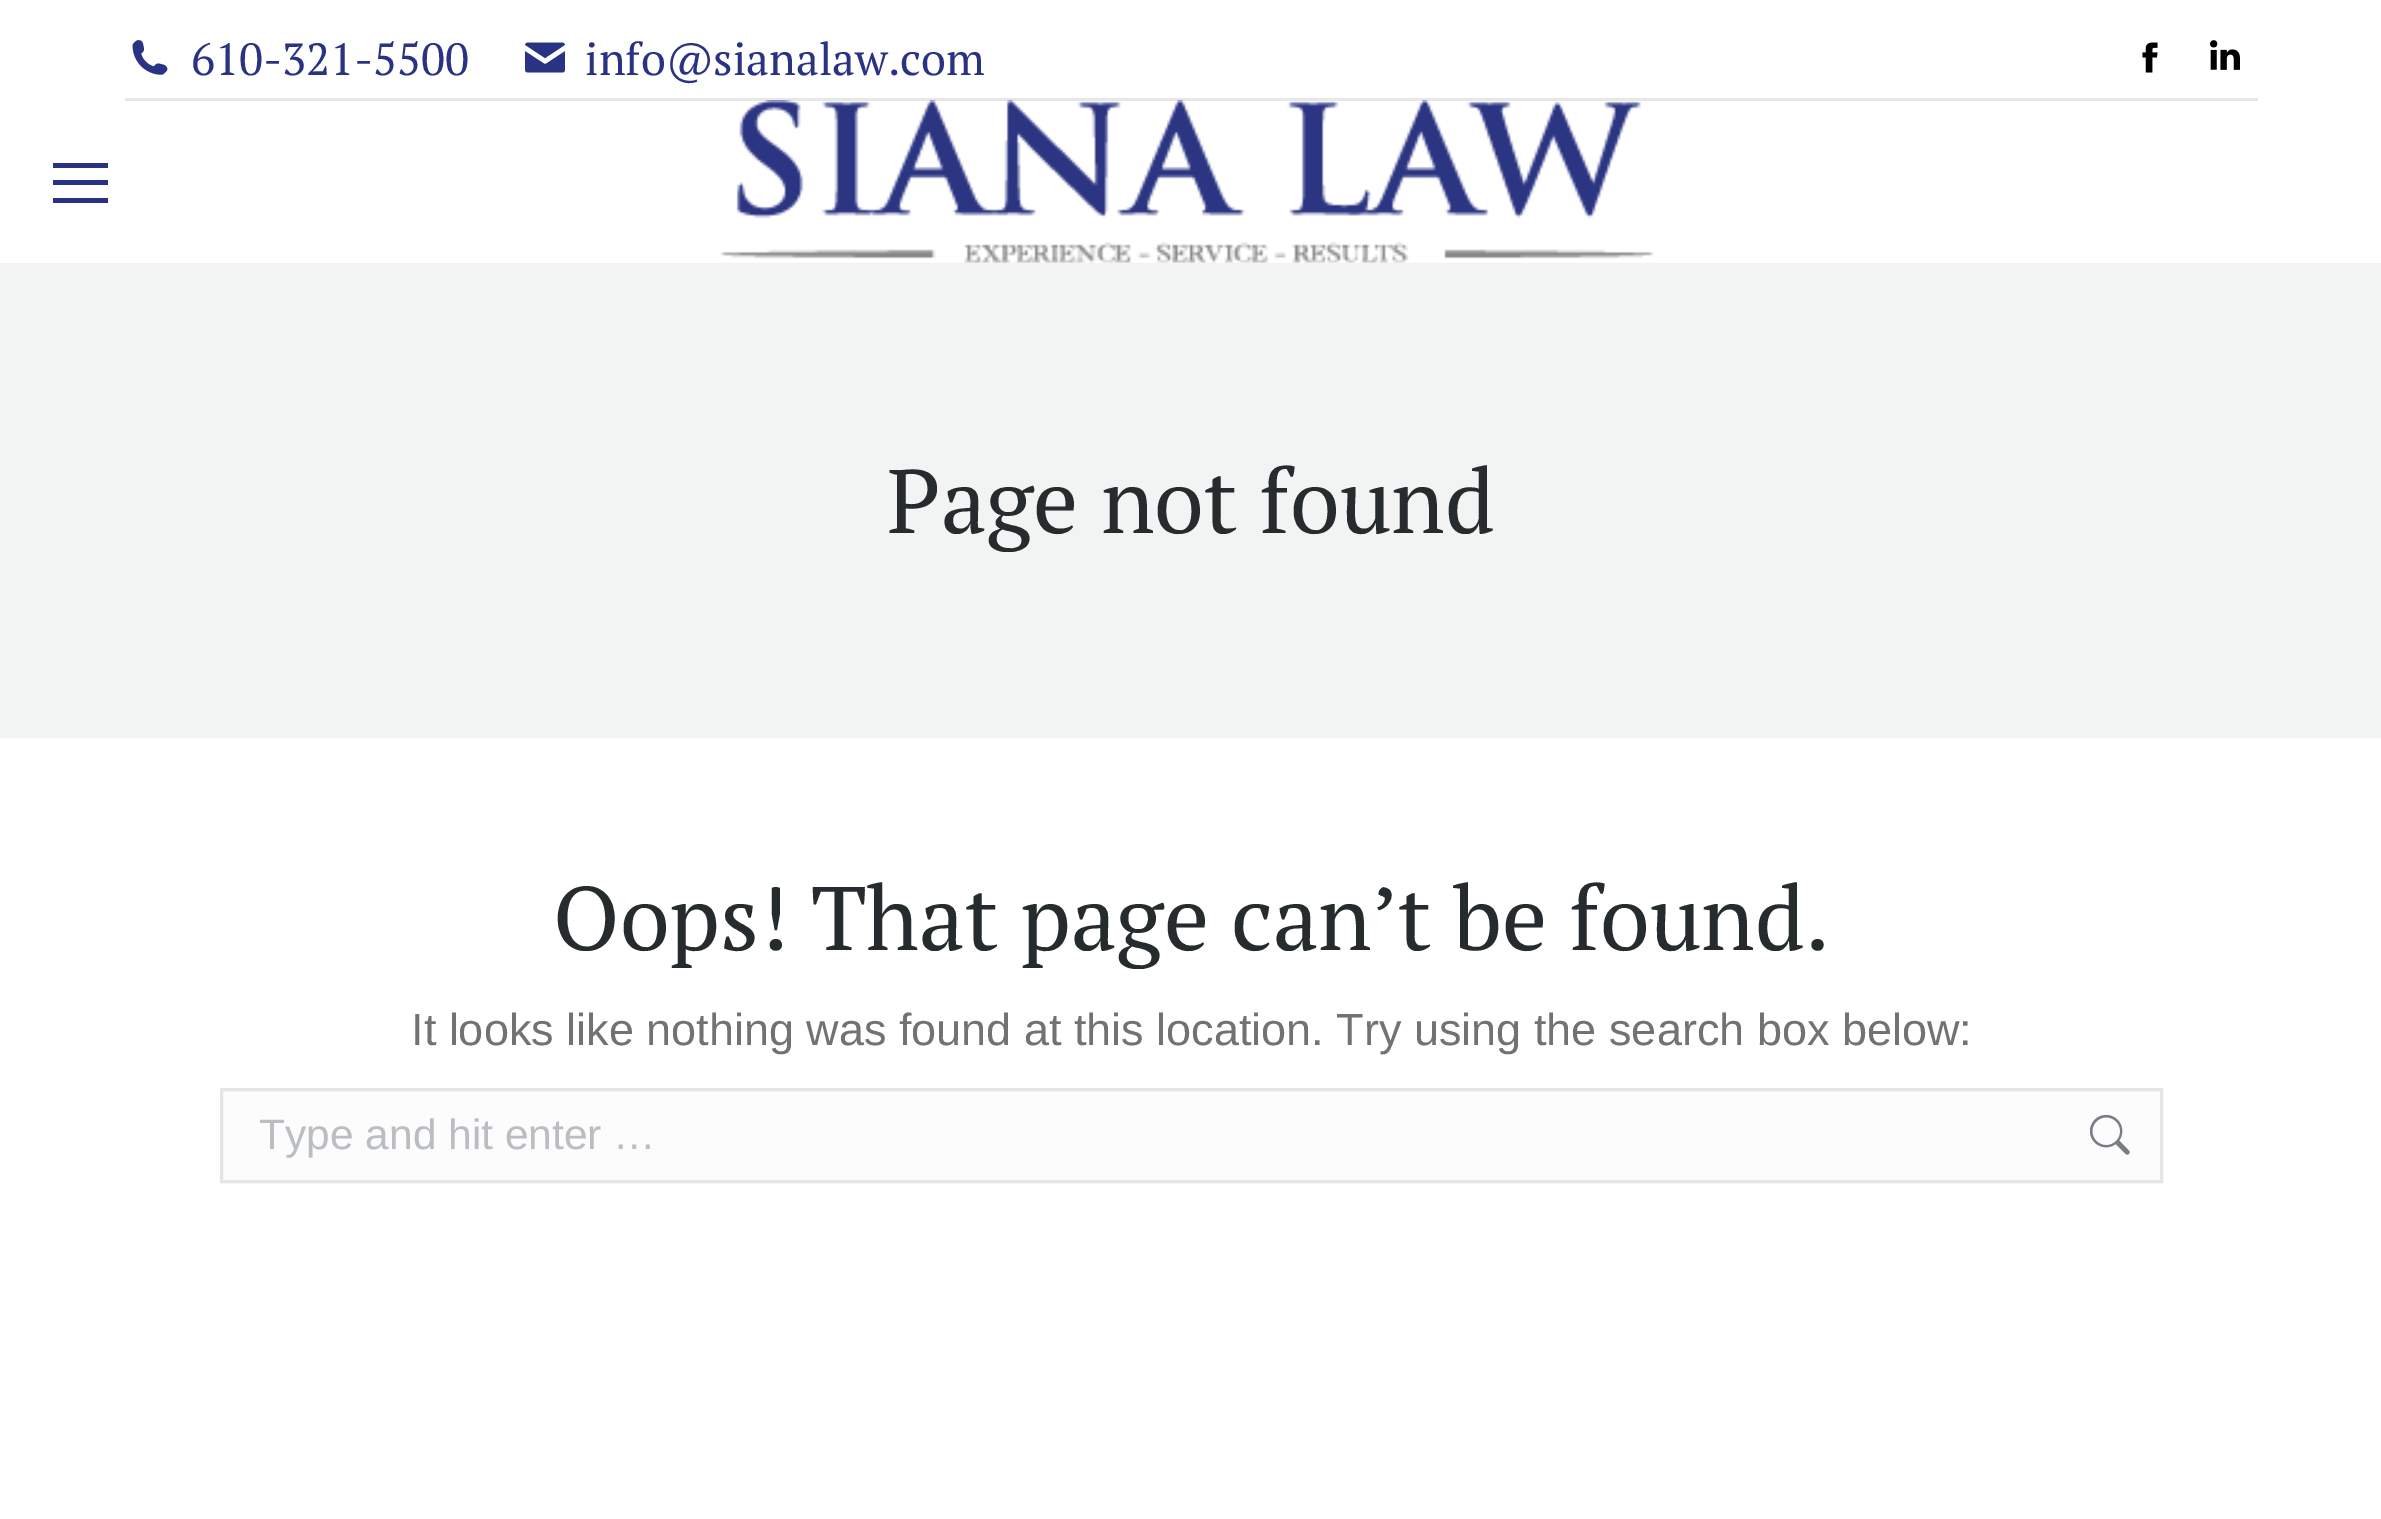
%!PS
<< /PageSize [2381 1519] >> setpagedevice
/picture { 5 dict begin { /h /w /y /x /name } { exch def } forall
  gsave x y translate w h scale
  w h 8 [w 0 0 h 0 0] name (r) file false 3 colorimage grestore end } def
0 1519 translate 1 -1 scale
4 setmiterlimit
1 setgray
0 0 2381 1519 rectfill
(img1.rgb) 132 40 36 35 picture
/PTSerif-Regular [45 0 0 -45 0 0] selectfont
0.165 0.196 0.514 setrgbcolor
191 75 moveto (610-321-5500) show
(img2.rgb) 525 42 40 31 picture
585 75 moveto (info@sianalaw.com) show
(img3.rgb) 2142 42 16 31 picture
(img4.rgb) 2210 40 30 30 picture
0.906 0.906 0.91 setrgbcolor
125 98 2133 3 rectfill
0.165 0.196 0.514 setrgbcolor
53 163 55 5 rectfill
53 180 55 5 rectfill
53 198 55 5 rectfill
(img5.rgb) 719 100 935 163 picture
0.949 0.953 0.953 setrgbcolor
0 263 2381 475 rectfill
/PTSerif-Regular [90 0 0 -90 0 0] selectfont
0.149 0.169 0.18 setrgbcolor
887 533 moveto (Page not found) show
553 950 moveto (Oops! That page can’t be found.) show
/LiberationSans-Regular [45 0 0 -45 0 0] selectfont
0.447 setgray
411 1045 moveto (It looks like nothing was found at this location. Try using the search box below:) show
0.988 setgray
newpath 221.5 1089.5 moveto 2161.5 1089.5 lineto 2161.5 1181.5 lineto 221.5 1181.5 lineto closepath gsave fill grestore
0.894 0.898 0.906 setrgbcolor
3 setlinewidth
stroke
/LiberationSans-Regular [42.5 0 0 -42.5 0 0] selectfont
0.729 0.741 0.757 setrgbcolor
259 1149 moveto (Type and hit enter …) show
(img6.rgb) 2090 1115 40 40 picture
showpage
